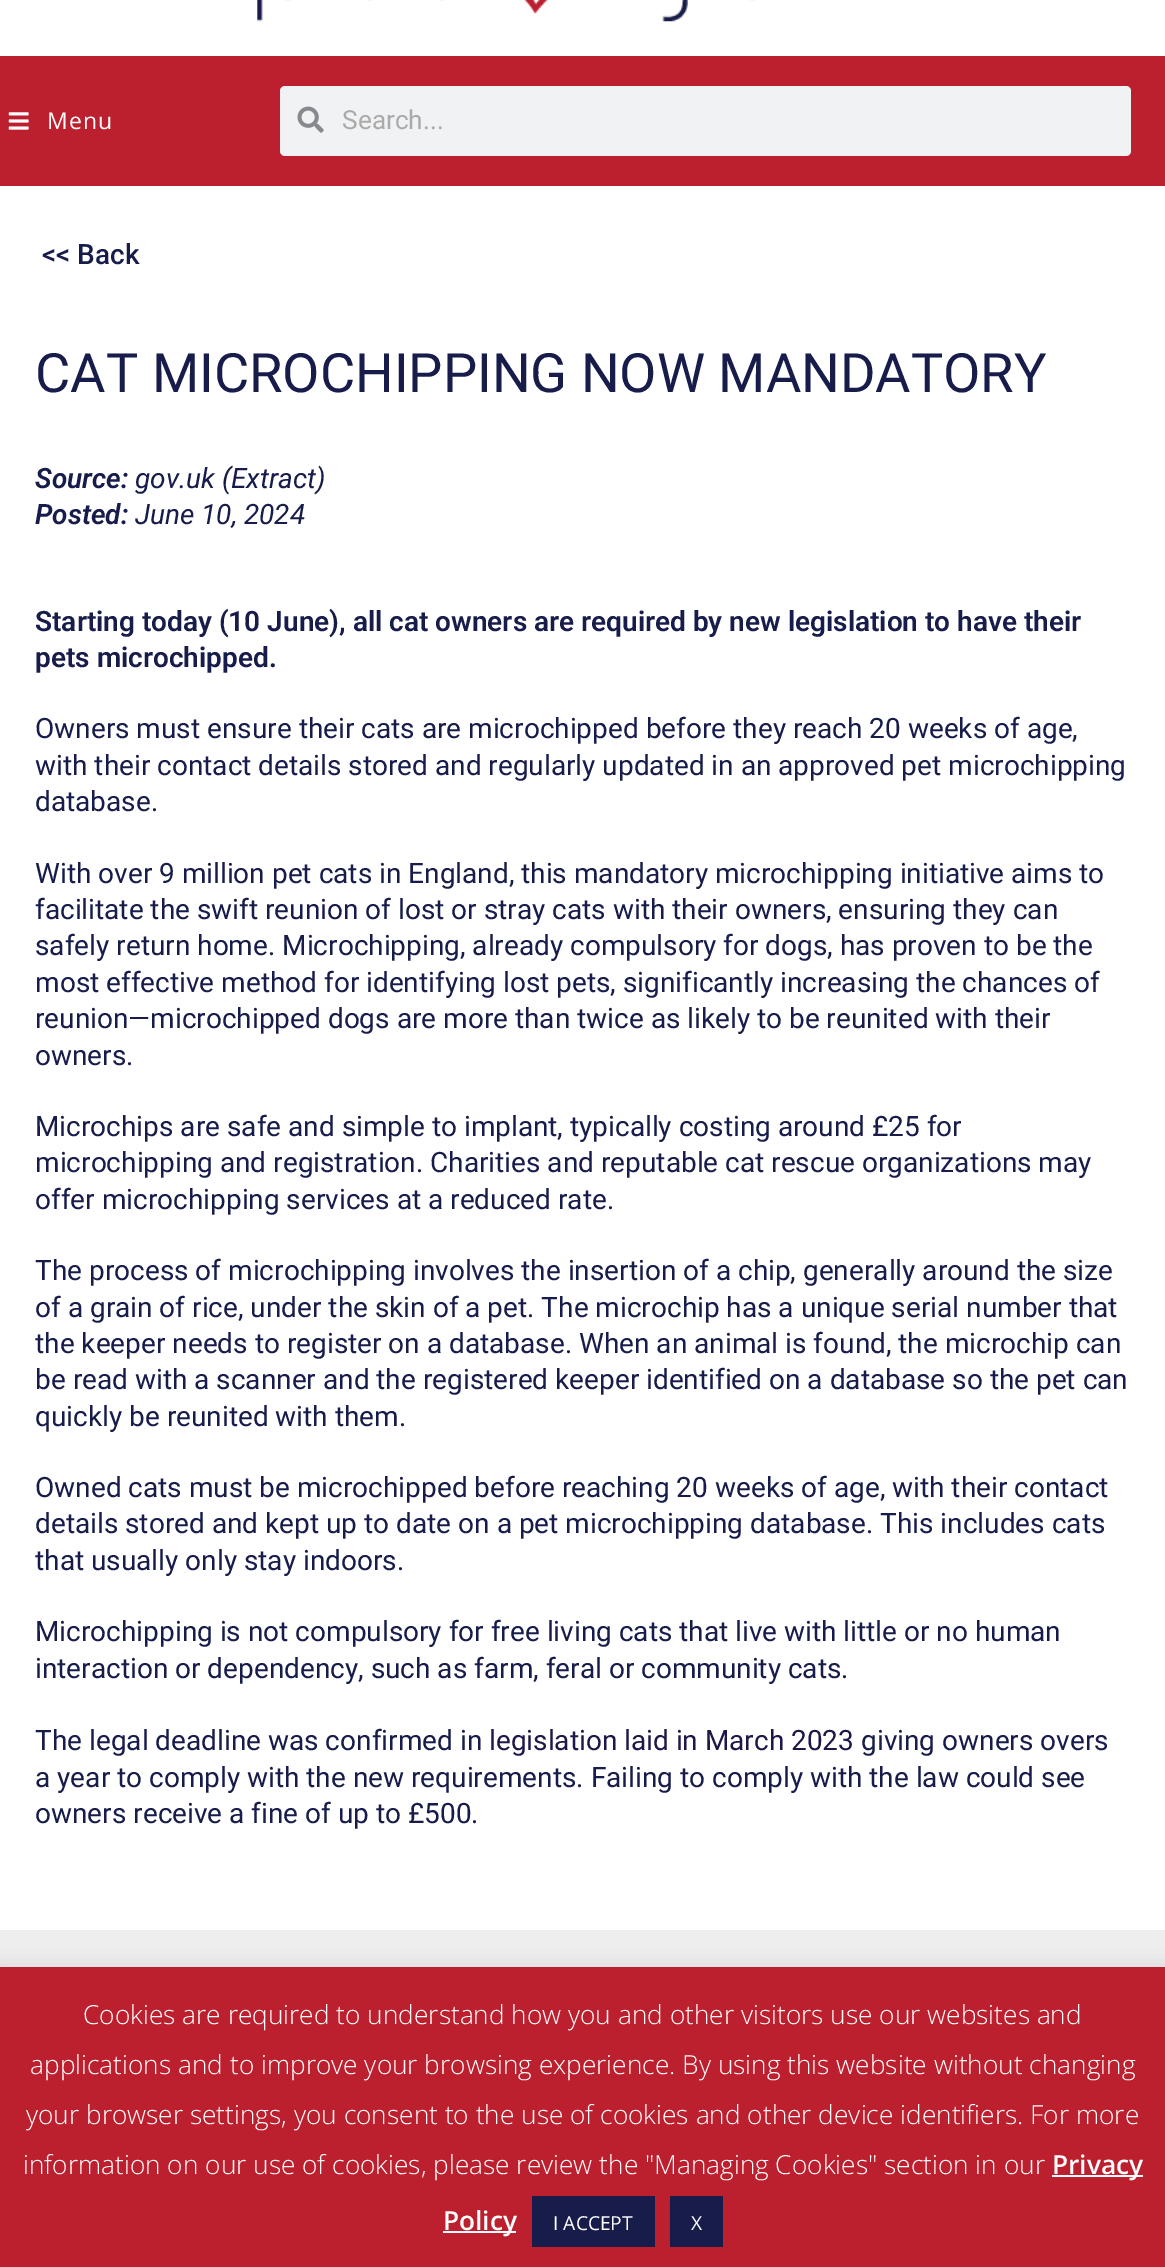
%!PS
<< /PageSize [1165 2267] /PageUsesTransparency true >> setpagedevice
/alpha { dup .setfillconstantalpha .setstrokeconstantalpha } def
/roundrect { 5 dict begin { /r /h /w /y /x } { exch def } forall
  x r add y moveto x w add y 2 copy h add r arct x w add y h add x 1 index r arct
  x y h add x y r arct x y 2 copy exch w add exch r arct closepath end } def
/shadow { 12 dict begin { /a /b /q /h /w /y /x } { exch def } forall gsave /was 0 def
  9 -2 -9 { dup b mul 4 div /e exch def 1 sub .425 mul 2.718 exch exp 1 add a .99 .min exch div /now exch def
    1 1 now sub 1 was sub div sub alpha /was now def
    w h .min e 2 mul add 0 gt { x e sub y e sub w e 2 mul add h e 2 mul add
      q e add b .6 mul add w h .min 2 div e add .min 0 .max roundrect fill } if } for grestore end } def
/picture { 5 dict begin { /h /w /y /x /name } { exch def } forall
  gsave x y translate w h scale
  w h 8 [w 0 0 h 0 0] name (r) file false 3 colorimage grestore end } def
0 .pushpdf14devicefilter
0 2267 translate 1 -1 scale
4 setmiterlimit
1 setgray
0 0 1165 2267 rectfill
(img1.rgb) 257 0 498 22 picture
0.737 0.125 0.18 setrgbcolor
0 56 1165 130 rectfill
(img2.rgb) 8 112 21 18 picture
/OpenSans-Regular [23 0 0 -23 0 0] selectfont
1 setgray
47 129 moveto 1 0 (Menu) ashow
0.945 0.949 0.953 setrgbcolor
280 86 851 70 5 roundrect fill
(img3.rgb) 297 106 27 27 picture
/Roboto-Regular [26.25 0 0 -26.25 0 0] selectfont
0.667 setgray
342 129 moveto (Search...) show
/Roboto-Medium [28 0 0 -28 0 0] selectfont
0.09 0.11 0.294 setrgbcolor
42 264 moveto (<< Back) show
/Roboto-Regular [54.25 0 0 -54.25 0 0] selectfont
35 392 moveto (CAT MICROCHIPPING NOW MANDATORY) show
/Roboto-SemiBoldItalic [28 0 0 -28 0 0] selectfont
35 488 moveto (Source:) show
/Roboto-Italic [28 0 0 -28 0 0] selectfont
135 488 moveto (gov.uk \(Extract\)) show
/Roboto-SemiBoldItalic [28 0 0 -28 0 0] selectfont
35 524 moveto (Posted:) show
/Roboto-Italic [28 0 0 -28 0 0] selectfont
135 524 moveto (June 10, 2024) show
/Roboto-SemiBold [28 0 0 -28 0 0] selectfont
35 631 moveto (Starting today \(10 June\), all cat owners are required by new legislation to have their) show
35 667 moveto (pets microchipped.) show
/Roboto-Regular [28 0 0 -28 0 0] selectfont
35 738 moveto (Owners must ensure their cats are microchipped before they reach 20 weeks of age,) show
35 775 moveto (with their contact details stored and regularly updated in an approved pet microchipping) show
35 811 moveto (database.) show
35 883 moveto (With over 9 million pet cats in England, this mandatory microchipping initiative aims to) show
35 919 moveto (facilitate the swift reunion of lost or stray cats with their owners, ensuring they can) show
35 955 moveto (safely return home. Microchipping, already compulsory for dogs, has proven to be the) show
35 992 moveto (most effective method for identifying lost pets, significantly increasing the chances of) show
35 1028 moveto (reunion—microchipped dogs are more than twice as likely to be reunited with their) show
35 1065 moveto (owners.) show
35 1136 moveto (Microchips are safe and simple to implant, typically costing around £25 for) show
35 1172 moveto (microchipping and registration. Charities and reputable cat rescue organizations may) show
35 1209 moveto (offer microchipping services at a reduced rate.) show
35 1280 moveto (The process of microchipping involves the insertion of a chip, generally around the size) show
35 1317 moveto (of a grain of rice, under the skin of a pet. The microchip has a unique serial number that) show
35 1353 moveto (the keeper needs to register on a database. When an animal is found, the microchip can) show
35 1389 moveto (be read with a scanner and the registered keeper identified on a database so the pet can) show
35 1426 moveto (quickly be reunited with them.) show
35 1497 moveto (Owned cats must be microchipped before reaching 20 weeks of age, with their contact) show
35 1533 moveto (details stored and kept up to date on a pet microchipping database. This includes cats) show
35 1570 moveto (that usually only stay indoors.) show
35 1641 moveto (Microchipping is not compulsory for free living cats that live with little or no human) show
35 1678 moveto (interaction or dependency, such as farm, feral or community cats.) show
35 1750 moveto (The legal deadline was confirmed in) show
0.122 0.09 0.282 setrgbcolor
489 1750 moveto (legislation laid in March 2023) show
0.09 0.11 0.294 setrgbcolor
861 1750 moveto (giving owners overs) show
35 1787 moveto (a year to comply with the new requirements. Failing to comply with the law could see) show
35 1823 moveto (owners receive a fine of up to £500.) show
0.933 setgray
0 1930 1165 37 rectfill
0.675 0.671 0.671 setrgbcolor
0 1965 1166 301 0 9 0.3 shadow
0.737 0.125 0.18 setrgbcolor
0 1967 1165 300 rectfill
/OpenSans-Light [26.25 0 0 -26.25 0 0] selectfont
1 setgray
83 2024 moveto (Cookies are required to understand how you and other visitors use our websites and) show
30 2074 moveto (applications and to improve your browsing experience. By using this website without changing) show
26 2124 moveto (your browser settings, you consent to the use of cookies and other device identifiers. For more) show
23 2174 moveto (information on our use of cookies, please review the "Managing Cookies" section in our) show
1052 2175 91 2 rectfill
/OpenSans-SemiBold [26.25 0 0 -26.25 0 0] selectfont
1052 2174 moveto (Privacy) show
443 2231 73 2 rectfill
443 2230 moveto (Policy) show
0.09 0.11 0.294 setrgbcolor
532 2196 123 51 rectfill
/OpenSans-Regular [19.25 0 0 -19.25 0 0] selectfont
1 setgray
553 2230 moveto (I ACCEPT) show
0.09 0.11 0.294 setrgbcolor
670 2196 53 51 rectfill
1 setgray
691 2230 moveto (X) show
.poppdf14devicefilter showpage
